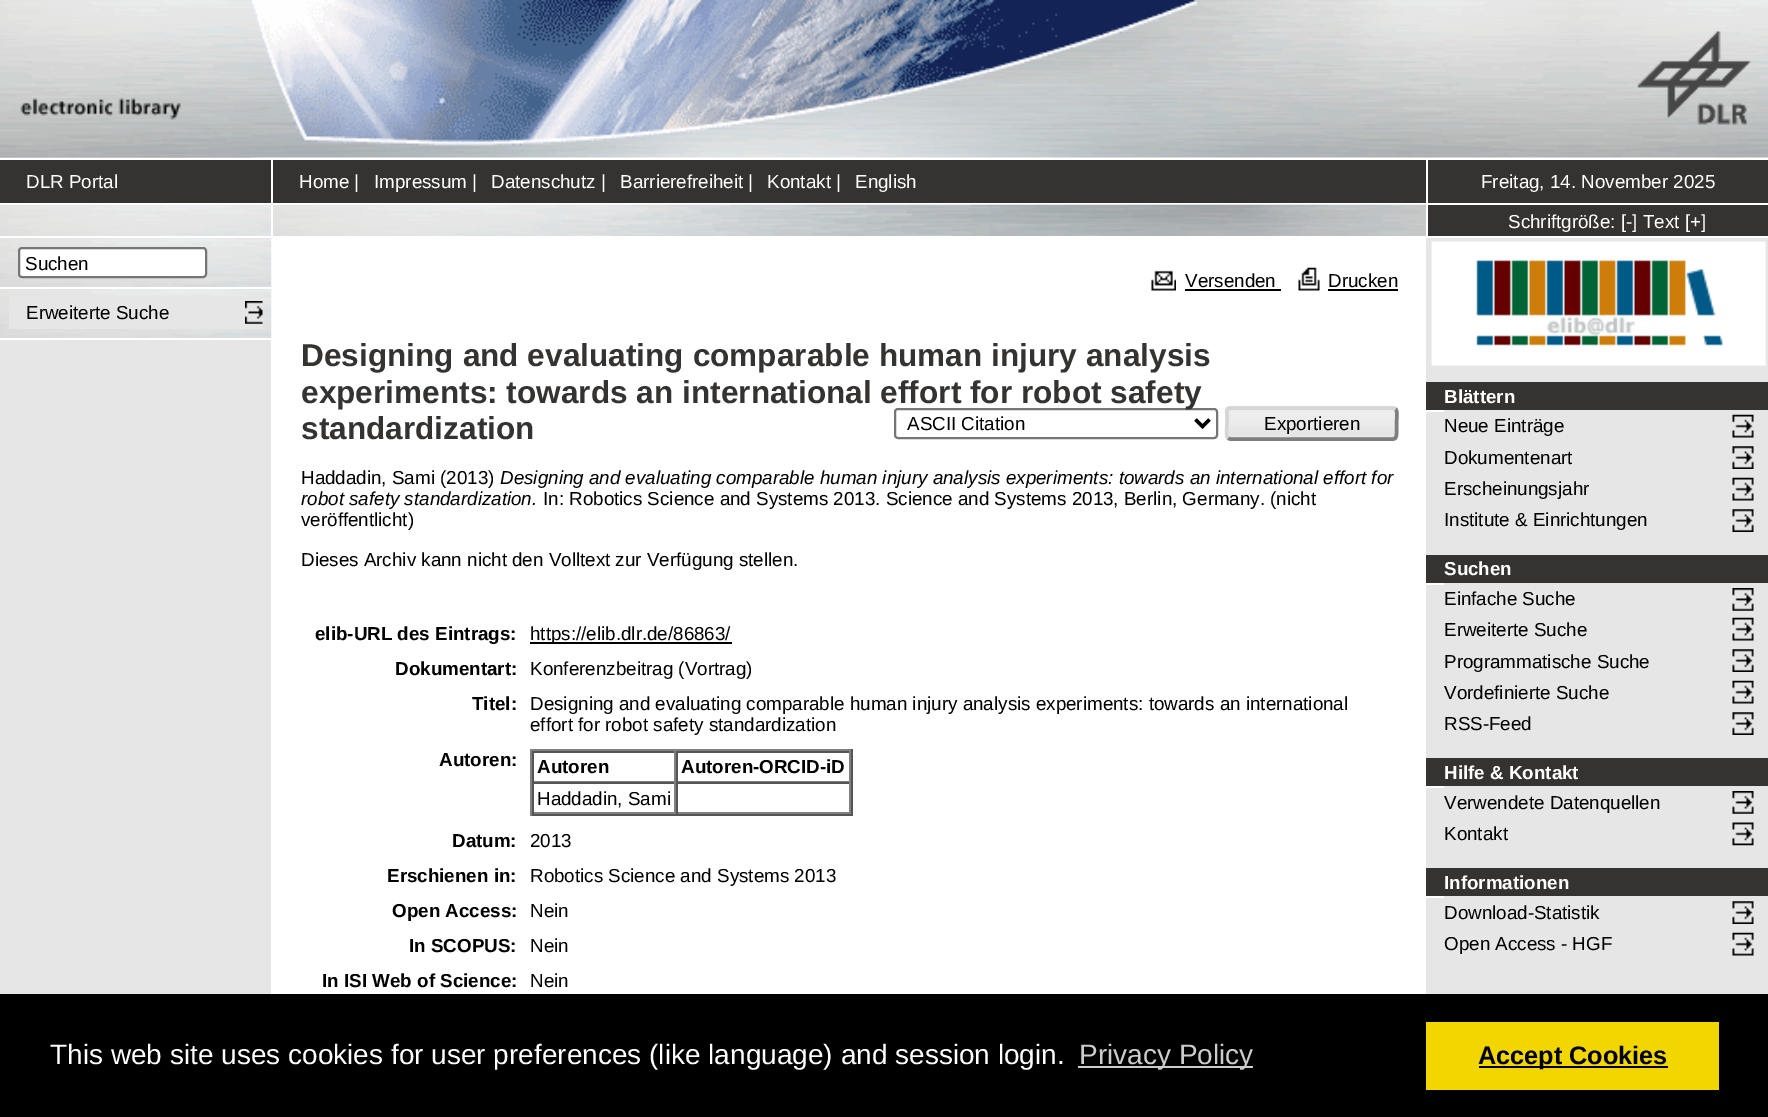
%!PS
<< /PageSize [1768 1117] >> setpagedevice
/roundrect { 5 dict begin { /r /h /w /y /x } { exch def } forall
  x r add y moveto x w add y 2 copy h add r arct x w add y h add x 1 index r arct
  x y h add x y r arct x y 2 copy exch w add exch r arct closepath end } def
/picture { 5 dict begin { /h /w /y /x /name } { exch def } forall
  gsave x y translate w h scale
  w h 8 [w 0 0 h 0 0] name (r) file false 3 colorimage grestore end } def
0 1117 translate 1 -1 scale
4 setmiterlimit
1 setgray
0 0 1768 1117 rectfill
(img1.rgb) 0 0 1768 158 picture
(img2.rgb) 0 97 252 61 picture
(img3.rgb) 252 0 945 146 picture
(img4.rgb) 1637 31 114 94 picture
0.902 setgray
0 238 1768 756 rectfill
0.208 0.2 0.192 setrgbcolor
0 160 271 43 rectfill
/LiberationSans-Regular [18.8 0 0 -18.8 0 0] selectfont
1 setgray
26 188 moveto (DLR Portal) show
0.208 0.2 0.192 setrgbcolor
273 160 1153 43 rectfill
1 setgray
299 188 moveto (Home |) show
374 188 moveto (Impressum |) show
491 188 moveto (Datenschutz |) show
620 188 moveto (Barrierefreiheit |) show
767 188 moveto (Kontakt |) show
855 188 moveto (English) show
0.208 0.2 0.192 setrgbcolor
1428 160 340 43 rectfill
1 setgray
1481 188 moveto (Freitag, 14. November 2025) show
(img5.rgb) 0 204 273 32 picture
271 205 2 789 rectfill
(img6.rgb) 273 204 1154 32 picture
0.208 0.2 0.192 setrgbcolor
1428 205 340 31 rectfill
1 setgray
1426 205 1 33 rectfill
1508 228 moveto (Schriftgröße: [-] Text [+]) show
(img7.rgb) 0 238 272 49 picture
19 248 187 29 3 roundrect gsave fill grestore
0.463 setgray
2 setlinewidth
stroke
0 setgray
25 270 moveto (Suchen) show
(img8.rgb) 0 289 272 51 picture
1 setgray
0 287 271 2 rectfill
0 338 271 2 rectfill
0.902 setgray
9 296 254 33 rectfill
(img9.rgb) 245 301 18 23 picture
0 setgray
26 319 moveto (Erweiterte Suche) show
1 setgray
273 238 1153 756 rectfill
(img10.rgb) 1151 270 25 21 picture
0 setgray
1185 287 moveto (Versenden) show
1185 289 96 2 rectfill
(img11.rgb) 1298 267 22 24 picture
1328 287 moveto (Drucken) show
1328 289 70 2 rectfill
/LiberationSans-Bold [31.6 0 0 -31.6 0 0] selectfont
0.208 0.2 0.192 setrgbcolor
301 366 moveto (Designing and evaluating comparable human injury analysis) show
0.463 setgray
895 409 322 29 3 roundrect stroke
0.208 0.2 0.192 setrgbcolor
301 403 moveto (experiments: towards an international effort for robot safety) show
301 439 moveto (standardization) show
0 setgray
3.5 setlinewidth
newpath 1195.5 419.5 moveto 1202.5 426.5 lineto 1209.5 419.5 lineto stroke
/LiberationSans-Regular [18.8 0 0 -18.8 0 0] selectfont
907 430 moveto (ASCII Citation) show
0.902 setgray
1225 406 173 35 5 roundrect fill
(img12.rgb) 1225 410 171 17 picture
0.498 setgray
newpath 1395.5 409 moveto 1398 411 1396.5 420.5 1396.5 423.5 curveto 1396.5 431.5 lineto 1396.5 434.5 1397 439 1393 439 curveto 1230 439 lineto 1228 438 lineto stroke
0.839 setgray
newpath 1228 438 moveto 1225.5 436 1227 426.5 1227 423.5 curveto 1227 415.5 lineto 1227 412.5 1226 408 1230 408 curveto 1393 408 lineto 1395.5 409 lineto stroke
0 setgray
1264 430 moveto (Exportieren) show
301 484 moveto (Haddadin, Sami \(2013\)) show
/LiberationSans-Italic [18.8 0 0 -18.8 0 0] selectfont
500 484 moveto (Designing and evaluating comparable human injury analysis experiments: towards an international effort for) show
301 505 moveto (robot safety standardization.) show
/LiberationSans-Regular [18.8 0 0 -18.8 0 0] selectfont
543 505 moveto (In: Robotics Science and Systems 2013. Science and Systems 2013, Berlin, Germany. \(nicht) show
301 526 moveto (veröffentlicht\)) show
301 566 moveto (Dieses Archiv kann nicht den Volltext zur Verfügung stellen.) show
/LiberationSans-Bold [18.8 0 0 -18.8 0 0] selectfont
315 640 moveto (elib-URL des Eintrags:) show
530 642 202 2 rectfill
/LiberationSans-Regular [18.8 0 0 -18.8 0 0] selectfont
530 640 moveto (https://elib.dlr.de/86863/) show
/LiberationSans-Bold [18.8 0 0 -18.8 0 0] selectfont
395 675 moveto (Dokumentart:) show
/LiberationSans-Regular [18.8 0 0 -18.8 0 0] selectfont
530 675 moveto (Konferenzbeitrag \(Vortrag\)) show
/LiberationSans-Bold [18.8 0 0 -18.8 0 0] selectfont
472 710 moveto (Titel:) show
/LiberationSans-Regular [18.8 0 0 -18.8 0 0] selectfont
530 710 moveto (Designing and evaluating comparable human injury analysis experiments: towards an international) show
530 731 moveto (effort for robot safety standardization) show
/LiberationSans-Bold [18.8 0 0 -18.8 0 0] selectfont
439 766 moveto (Autoren:) show
0.502 setgray
530 749 322 2 rectfill
0.333 setgray
851 749 2 67 rectfill
530 814 322 2 rectfill
0.502 setgray
530 749 2 67 rectfill
0.333 setgray
532 751 319 2 rectfill
0.502 setgray
674 751 2 31 rectfill
532 781 144 1 rectfill
0.333 setgray
532 751 2 31 rectfill
0 setgray
537 773 moveto (Autoren) show
0.502 setgray
849 751 2 31 rectfill
676 781 175 1 rectfill
0.333 setgray
676 751 2 31 rectfill
0 setgray
681 773 moveto (Autoren-ORCID-iD) show
0.333 setgray
532 782 319 2 rectfill
0.502 setgray
674 782 2 32 rectfill
532 812 144 2 rectfill
0.333 setgray
532 782 2 32 rectfill
/LiberationSans-Regular [18.8 0 0 -18.8 0 0] selectfont
0 setgray
537 805 moveto (Haddadin, Sami) show
0.502 setgray
849 782 2 32 rectfill
676 812 175 2 rectfill
0.333 setgray
676 782 2 32 rectfill
/LiberationSans-Bold [18.8 0 0 -18.8 0 0] selectfont
0 setgray
452 847 moveto (Datum:) show
/LiberationSans-Regular [18.8 0 0 -18.8 0 0] selectfont
530 847 moveto (2013) show
/LiberationSans-Bold [18.8 0 0 -18.8 0 0] selectfont
387 882 moveto (Erschienen in:) show
/LiberationSans-Regular [18.8 0 0 -18.8 0 0] selectfont
530 882 moveto (Robotics Science and Systems 2013) show
/LiberationSans-Bold [18.8 0 0 -18.8 0 0] selectfont
392 917 moveto (Open Access:) show
/LiberationSans-Regular [18.8 0 0 -18.8 0 0] selectfont
530 917 moveto (Nein) show
/LiberationSans-Bold [18.8 0 0 -18.8 0 0] selectfont
409 952 moveto (In SCOPUS:) show
/LiberationSans-Regular [18.8 0 0 -18.8 0 0] selectfont
530 952 moveto (Nein) show
/LiberationSans-Bold [18.8 0 0 -18.8 0 0] selectfont
322 987 moveto (In ISI Web of Science:) show
/LiberationSans-Regular [18.8 0 0 -18.8 0 0] selectfont
530 987 moveto (Nein) show
(img13.rgb) 1431 241 335 125 picture
0.208 0.2 0.192 setrgbcolor
1426 382 342 28 rectfill
1 setgray
1426 410 18 2 rectfill
/LiberationSans-Bold [18.8 0 0 -18.8 0 0] selectfont
1444 403 moveto (Blättern) show
(img14.rgb) 1732 414 22 24 picture
/LiberationSans-Regular [18.8 0 0 -18.8 0 0] selectfont
0 setgray
1444 432 moveto (Neue Einträge) show
(img15.rgb) 1732 446 22 23 picture
1444 464 moveto (Dokumentenart) show
(img14.rgb) 1732 477 22 24 picture
1444 495 moveto (Erscheinungsjahr) show
(img15.rgb) 1732 509 22 23 picture
1444 526 moveto (Institute & Einrichtungen) show
0.208 0.2 0.192 setrgbcolor
1426 555 342 28 rectfill
1 setgray
1426 583 18 2 rectfill
/LiberationSans-Bold [18.8 0 0 -18.8 0 0] selectfont
1444 575 moveto (Suchen) show
(img16.rgb) 1732 588 22 23 picture
/LiberationSans-Regular [18.8 0 0 -18.8 0 0] selectfont
0 setgray
1444 605 moveto (Einfache Suche) show
(img14.rgb) 1732 617 22 24 picture
1444 636 moveto (Erweiterte Suche) show
(img15.rgb) 1732 649 22 23 picture
1444 668 moveto (Programmatische Suche) show
(img14.rgb) 1732 680 22 24 picture
1444 699 moveto (Vordefinierte Suche) show
(img15.rgb) 1732 712 22 23 picture
1444 730 moveto (RSS-Feed) show
0.208 0.2 0.192 setrgbcolor
1426 758 342 28 rectfill
1 setgray
1426 786 18 2 rectfill
/LiberationSans-Bold [18.8 0 0 -18.8 0 0] selectfont
1444 779 moveto (Hilfe & Kontakt) show
(img16.rgb) 1732 791 22 23 picture
/LiberationSans-Regular [18.8 0 0 -18.8 0 0] selectfont
0 setgray
1444 809 moveto (Verwendete Datenquellen) show
(img17.rgb) 1732 822 22 24 picture
1444 840 moveto (Kontakt) show
0.208 0.2 0.192 setrgbcolor
1426 868 342 28 rectfill
1 setgray
1426 896 18 2 rectfill
/LiberationSans-Bold [18.8 0 0 -18.8 0 0] selectfont
1444 889 moveto (Informationen) show
(img15.rgb) 1732 901 22 23 picture
/LiberationSans-Regular [18.8 0 0 -18.8 0 0] selectfont
0 setgray
1444 919 moveto (Download-Statistik) show
(img14.rgb) 1732 932 22 24 picture
1444 950 moveto (Open Access - HGF) show
0 994 1768 123 rectfill
/LiberationSans-Regular [28 0 0 -28 0 0] selectfont
1 setgray
50 1064 moveto (This web site uses cookies for user preferences \(like language\) and session login.) show
0.8 setgray
1078 1066 175 2 rectfill
1079 1064 moveto (Privacy Policy) show
0.945 0.839 0 setrgbcolor
1426 1022 293 68 rectfill
0 setgray
1479 1066 189 2 rectfill
/LiberationSans-Bold [25.25 0 0 -25.25 0 0] selectfont
1478 1064 moveto (Accept Cookies) show
showpage
